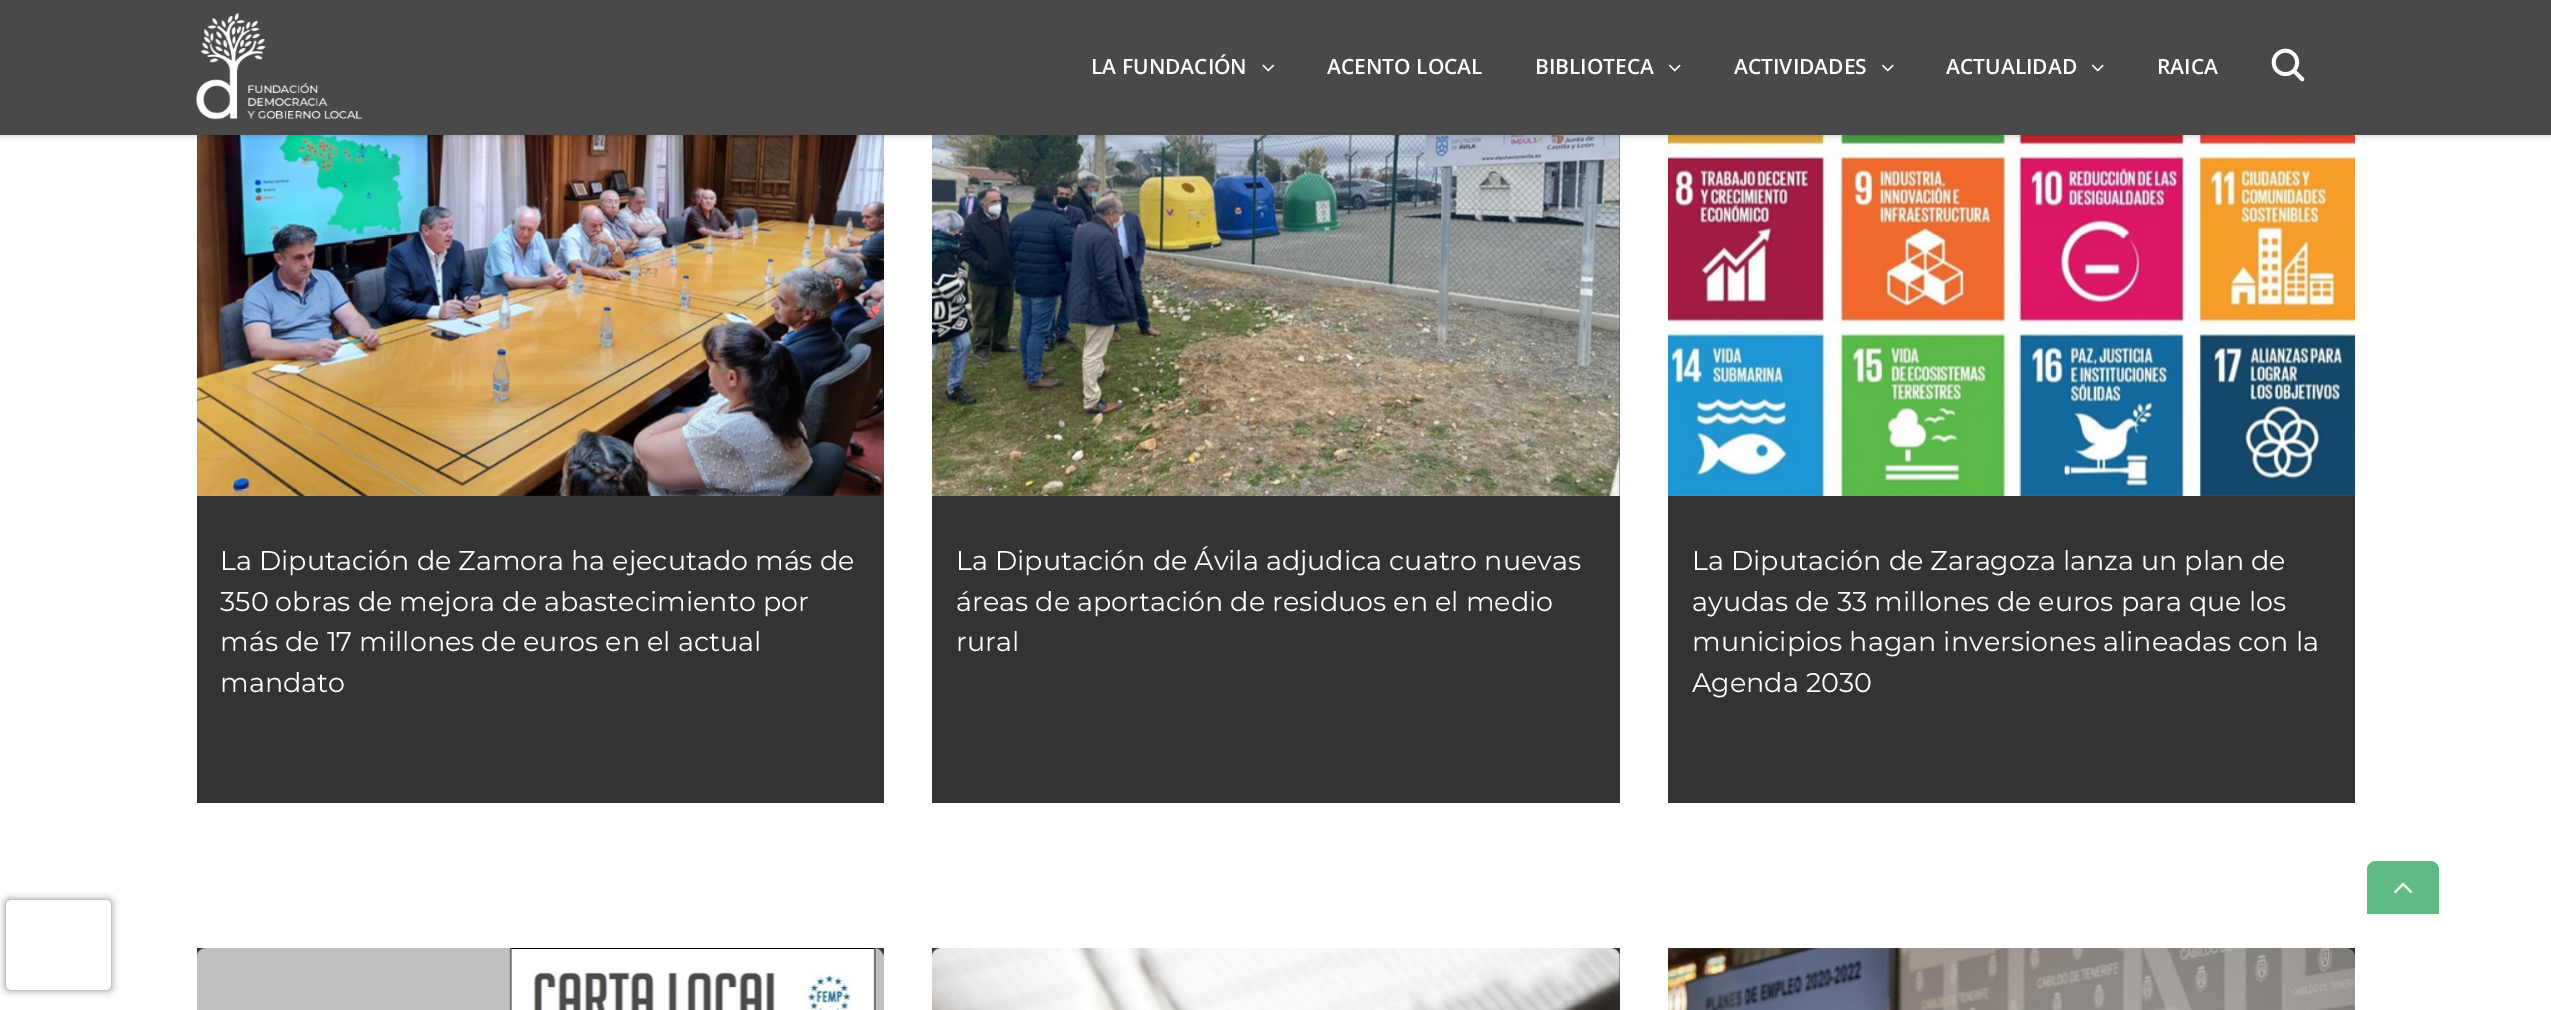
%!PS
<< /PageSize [2551 1010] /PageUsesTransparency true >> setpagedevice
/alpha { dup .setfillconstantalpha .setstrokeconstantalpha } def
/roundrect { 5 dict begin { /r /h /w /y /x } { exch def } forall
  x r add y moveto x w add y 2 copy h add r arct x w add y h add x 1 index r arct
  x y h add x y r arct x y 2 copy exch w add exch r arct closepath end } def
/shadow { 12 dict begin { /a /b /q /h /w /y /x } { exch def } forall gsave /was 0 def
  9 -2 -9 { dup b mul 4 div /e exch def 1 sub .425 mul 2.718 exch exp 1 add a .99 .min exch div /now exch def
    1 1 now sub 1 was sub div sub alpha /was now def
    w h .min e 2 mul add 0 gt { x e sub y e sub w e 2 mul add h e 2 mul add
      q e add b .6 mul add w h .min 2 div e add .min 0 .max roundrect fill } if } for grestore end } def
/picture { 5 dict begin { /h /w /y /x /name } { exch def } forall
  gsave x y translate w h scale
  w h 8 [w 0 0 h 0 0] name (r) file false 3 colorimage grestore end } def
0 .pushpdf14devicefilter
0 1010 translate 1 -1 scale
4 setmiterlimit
1 setgray
0 0 2551 1010 rectfill
(img5.rgb) 197 135 687 361 picture
0.2 setgray
932 135 688 668 rectfill
(img6.rgb) 932 135 688 361 picture
(img7.rgb) 1668 135 687 361 picture
0 setgray
0 2 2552 135 0 2 0.12 shadow
0.286 setgray
0 0 2551 135 rectfill
(img1.rgb) 196 13 166 107 picture
/OpenSans-SemiBold [21 0 0 -21 0 0] selectfont
1 setgray
1091 74 moveto (LA FUNDACIÓN) show
(img2.rgb) 1262 64 13 8 picture
1327 74 moveto (ACENTO LOCAL) show
1535 74 moveto (BIBLIOTECA) show
(img3.rgb) 1669 64 12 8 picture
1734 74 moveto (ACTIVIDADES) show
(img3.rgb) 1882 64 12 8 picture
1946 74 moveto (ACTUALIDAD) show
(img3.rgb) 2092 64 12 8 picture
2157 74 moveto (RAICA) show
(img4.rgb) 2271 48 34 34 picture
0.2 setgray
197 496 687 307 rectfill
/Montserrat-Regular [27 0 0 -27 0 0] selectfont
1 setgray
220 570 moveto (La Diputación de Zamora ha ejecutado más de) show
220 611 moveto (350 obras de mejora de abastecimiento por) show
220 651 moveto (más de 17 millones de euros en el actual) show
220 692 moveto (mandato) show
956 570 moveto (La Diputación de Ávila adjudica cuatro nuevas) show
956 611 moveto (áreas de aportación de residuos en el medio) show
956 651 moveto (rural) show
0.2 setgray
1668 496 687 307 rectfill
1 setgray
1692 570 moveto (La Diputación de Zaragoza lanza un plan de) show
1692 611 moveto (ayudas de 33 millones de euros para que los) show
1692 651 moveto (municipios hagan inversiones alineadas con la) show
1692 692 moveto (Agenda 2030) show
0.2 setgray
197 948 687 9 rectfill
(img8.rgb) 197 948 687 62 picture
932 948 688 62 rectfill
(img9.rgb) 932 948 688 62 picture
1668 948 687 9 rectfill
(img10.rgb) 1668 948 687 62 picture
gsave
newpath 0 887 moveto 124 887 lineto 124 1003 lineto 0 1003 lineto closepath 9 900 moveto 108 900 lineto 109.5 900 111 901.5 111 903 curveto 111 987 lineto 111 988.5 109.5 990 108 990 curveto 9 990 lineto 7.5 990 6 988.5 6 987 curveto 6 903 lineto 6 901.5 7.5 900 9 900 curveto closepath eoclip newpath
0.502 setgray
6 900 105 90 3 4 1 shadow
grestore
0.373 0.733 0.518 setrgbcolor
newpath 2376 861 moveto 2430 861 lineto 2435 861 2439 865 2439 870 curveto 2439 914 lineto 2367 914 lineto 2367 870 lineto 2367 865 2371 861 2376 861 curveto closepath fill
(img11.rgb) 2394 882 19 12 picture
.poppdf14devicefilter showpage
